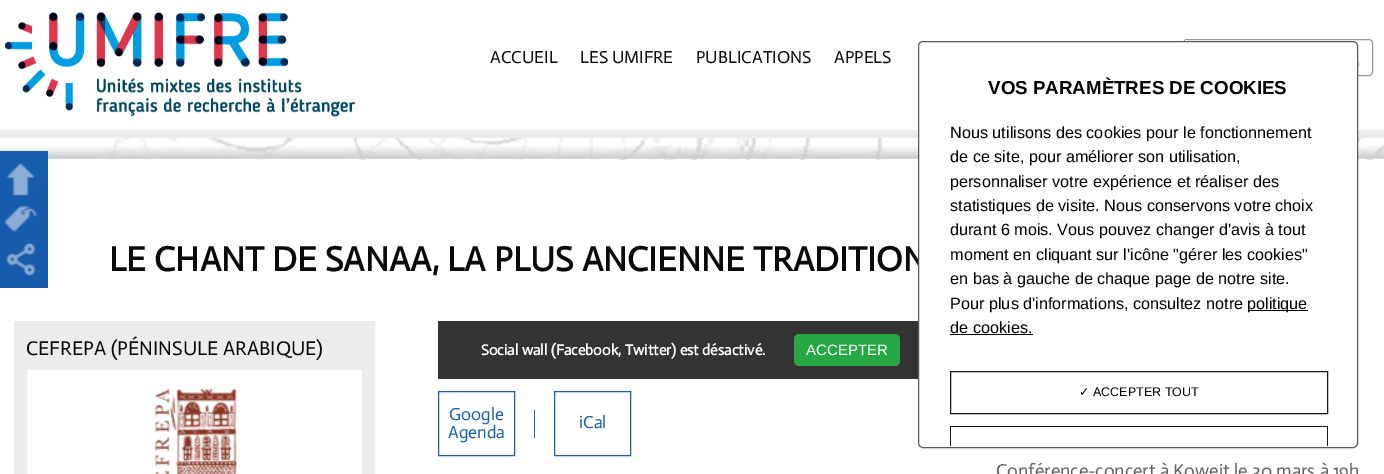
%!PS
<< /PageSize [1384 474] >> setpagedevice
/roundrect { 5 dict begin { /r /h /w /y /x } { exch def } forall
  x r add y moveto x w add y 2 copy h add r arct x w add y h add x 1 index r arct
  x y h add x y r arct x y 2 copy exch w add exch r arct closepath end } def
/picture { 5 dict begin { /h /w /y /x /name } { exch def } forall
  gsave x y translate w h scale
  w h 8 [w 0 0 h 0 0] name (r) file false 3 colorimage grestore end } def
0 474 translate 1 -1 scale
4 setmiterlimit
1 setgray
0 0 1384 474 rectfill
(img1.rgb) 0 138 1384 22 picture
0.925 setgray
0 130 1384 8 rectfill
(img2.rgb) 4 12 351 105 picture
/Actor-Regular [17.5 0 0 -17.5 0 0] selectfont
0.039 setgray
490 63 moveto (ACCUEIL) show
580 63 moveto (LES UMIFRE) show
696 63 moveto (PUBLICATIONS) show
834 63 moveto (APPELS) show
0.604 setgray
1183.5 39.5 189 36 3.5 roundrect stroke
1 setgray
1185 40 2 1 rectfill
(img3.rgb) 1358 48 2 19 picture
(img4.rgb) 0 146 1384 13 picture
gsave newpath 0 151 moveto 48 151 lineto 48 288 lineto 0 288 lineto closepath clip newpath
<< /ShadingType 2 /ColorSpace /DeviceRGB /Coords [24 151 24 288] /Extend [true true] /Function << /FunctionType 3 /Domain [0 1] /Functions [<< /FunctionType 2 /Domain [0 1] /C0 [0.094 0.373 0.686] /C1 [0.09 0.357 0.671] /N 1 >> << /FunctionType 2 /Domain [0 1] /C0 [0.09 0.357 0.671] /C1 [0.09 0.357 0.671] /N 1 >>] /Bounds [0.5] /Encode [0 1 0 1] >> >> shfill grestore
(img5.rgb) 7 163 28 33 picture
(img6.rgb) 4 205 33 27 picture
(img7.rgb) 6 243 30 33 picture
/Actor-Bold [35 0 0 -35 0 0] selectfont
0.039 setgray
109 271 moveto (LE CHANT DE SANAA, LA PLUS ANCIENNE TRADITION) show
0.925 setgray
13 setlinewidth
20.5 327.5 348 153 rectstroke
27 334 335 36 rectfill
/Actor-Regular [20 0 0 -20 0 0] selectfont
0.039 setgray
26 355 moveto (CEFREPA \(PÉNINSULE ARABIQUE\)) show
(img8.rgb) 154 388 83 86 picture
0.2 setgray
438 321 480 58 rectfill
/Actor-Bold [15 0 0 -15 0 0] selectfont
1 setgray
481 355 moveto (Social wall \(Facebook, Twitter\) est désactivé.) show
0.157 0.655 0.271 setrgbcolor
794 334 106 32 5 roundrect fill
/LiberationSans-Regular [15 0 0 -15 0 0] selectfont
1 setgray
806 355 moveto (ACCEPTER) show
0.094 0.373 0.675 setrgbcolor
534 410 1 28 rectfill
1 setlinewidth
438.5 391.5 76 64 rectstroke
/Actor-Regular [17.5 0 0 -17.5 0 0] selectfont
0.094 0.373 0.686 setrgbcolor
449 420 moveto (Google) show
448 438 moveto (Agenda) show
0.094 0.373 0.675 setrgbcolor
554.5 391.5 76 64 rectstroke
0.094 0.373 0.686 setrgbcolor
579 428 moveto (iCal) show
/Actor-Regular [18.75 0 0 -18.75 0 0] selectfont
0.38 setgray
996 477 moveto (Conférence-concert à Koweit le 30 mars à 19h) show
1 setgray
918.5 41.5 439 406 4.5 roundrect gsave fill grestore
0.345 0.349 0.357 setrgbcolor
stroke
/LiberationSans-Bold [18.75 0 0 -18.75 0 0] selectfont
0 setgray
988 94 moveto (VOS PARAMÈTRES DE COOKIES) show
/LiberationSans-Regular [16.25 0 0 -16.25 0 0] selectfont
950 138 moveto (Nous utilisons des cookies pour le fonctionnement) show
950 162 moveto (de ce site, pour améliorer son utilisation,) show
950 187 moveto (personnaliser votre expérience et réaliser des) show
950 211 moveto (statistiques de visite. Nous conservons votre choix) show
950 235 moveto (durant 6 mois. Vous pouvez changer d'avis à tout) show
950 260 moveto (moment en cliquant sur l'icône "gérer les cookies") show
950 284 moveto (en bas à gauche de chaque page de notre site.) show
950 309 moveto (Pour plus d'informations, consultez notre) show
1248 310 60 1 rectfill
1247 309 moveto (politique) show
950 333 moveto (de cookies.) show
950 334 83 1 rectfill
0.09 setgray
950.5 371.5 377 42 rectstroke
/DejaVuSans-Regular [12.5 0 0 -12.5 0 0] selectfont
0 setgray
1079 396 moveto (✓) show
/LiberationSans-Regular [12.5 0 0 -12.5 0 0] selectfont
1093 396 moveto (ACCEPTER TOUT) show
0.09 setgray
newpath 950 426 moveto 950 446 lineto 951 446 lineto 951 427 lineto 1327 427 lineto 1327 446 lineto 1328 446 lineto 1328 426 lineto closepath fill
showpage
